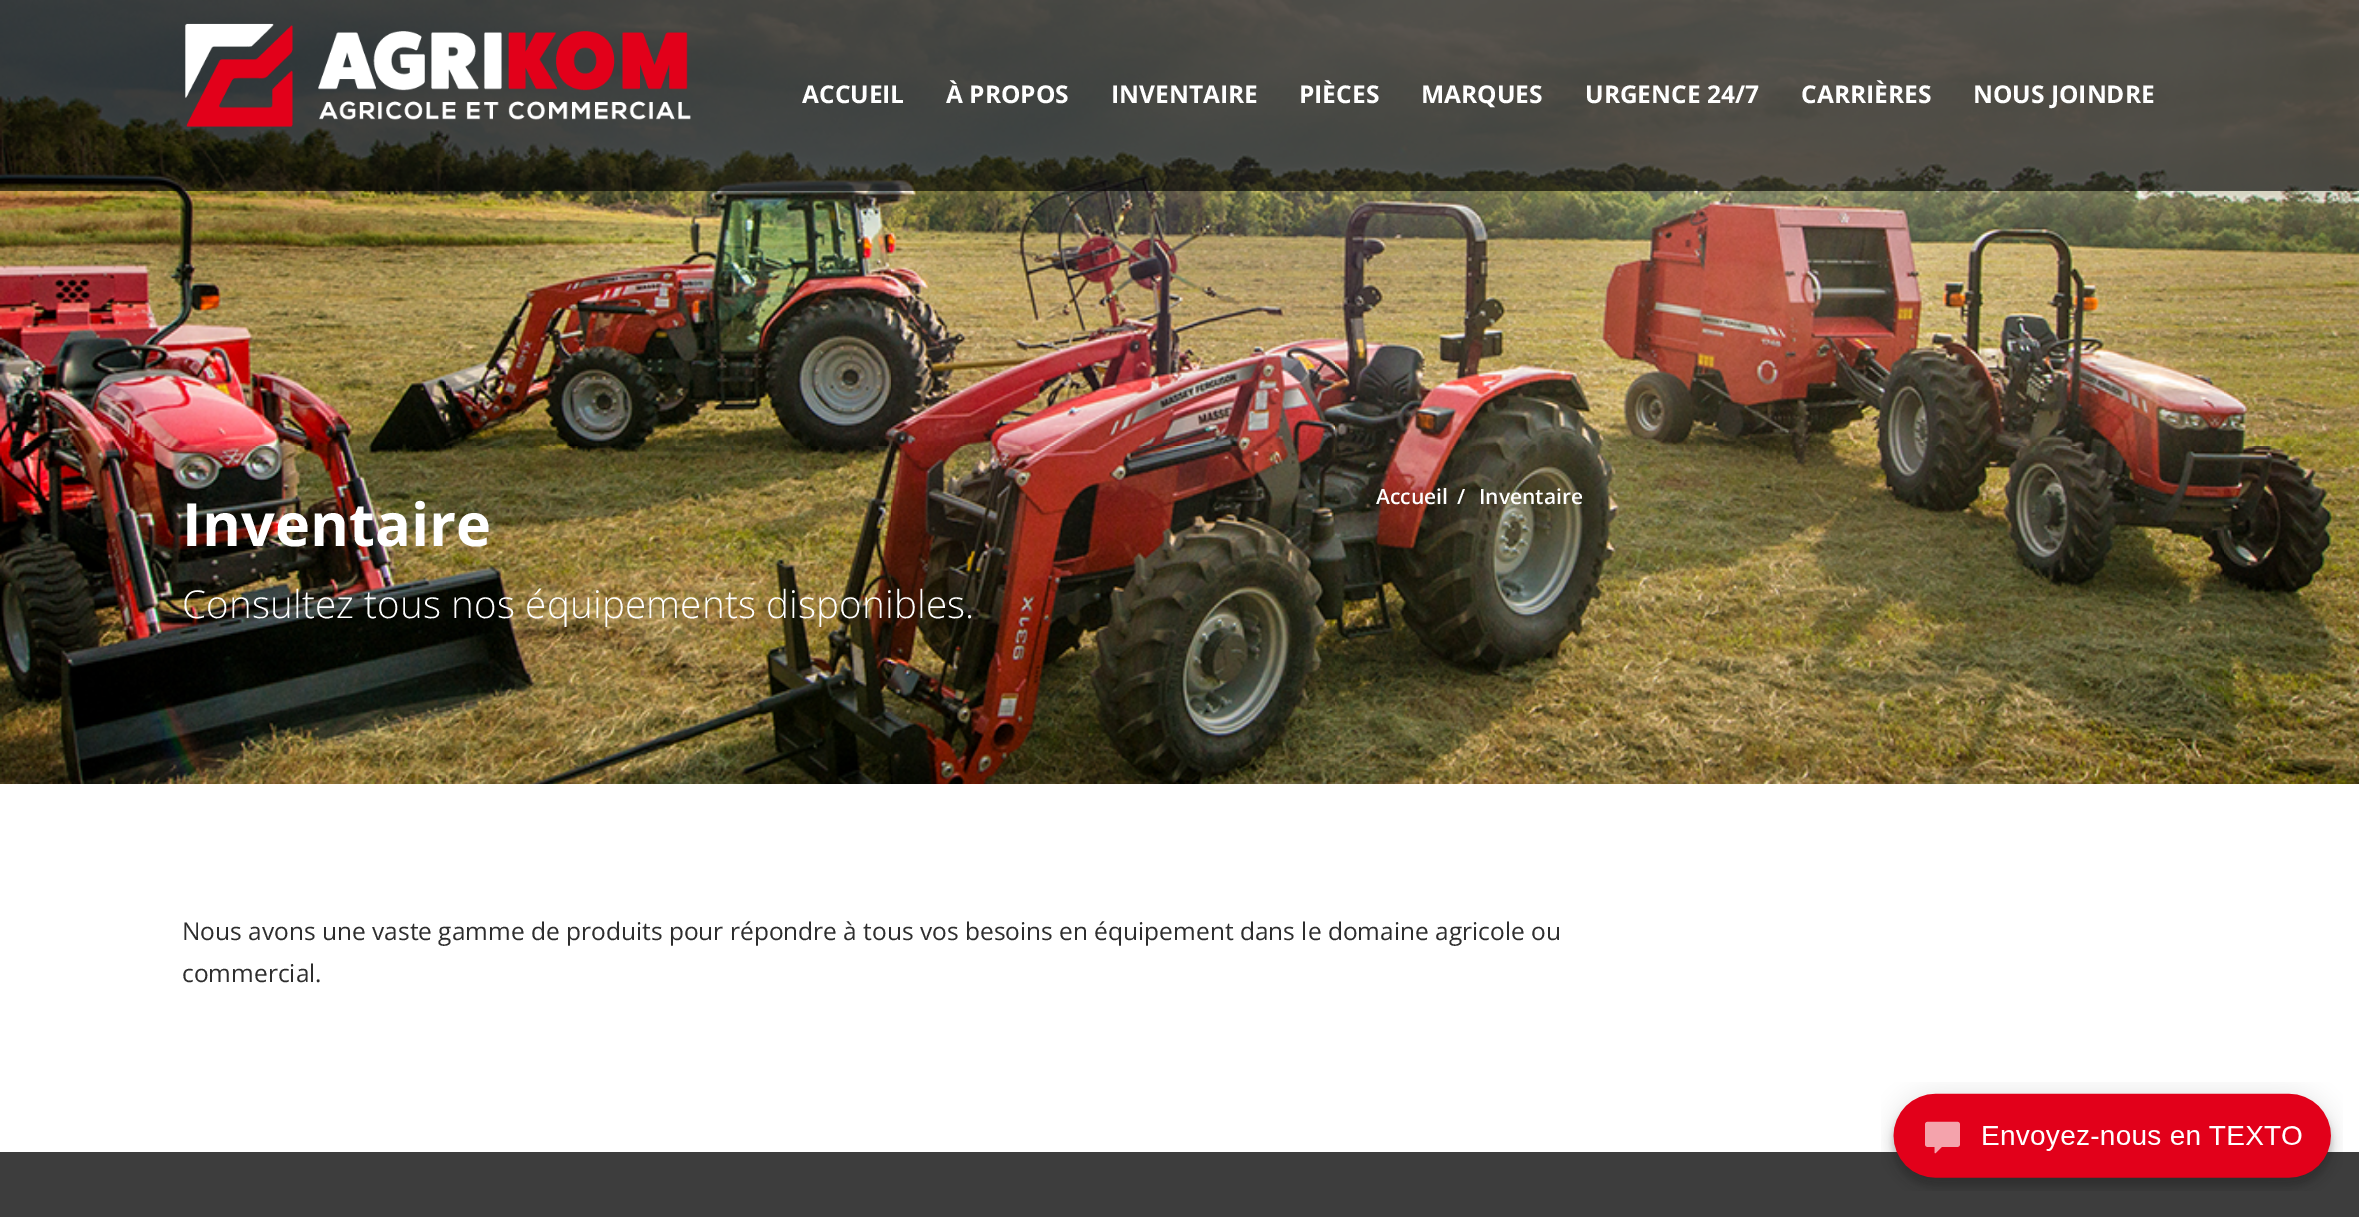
%!PS
<< /PageSize [2359 1217] /PageUsesTransparency true >> setpagedevice
/alpha { dup .setfillconstantalpha .setstrokeconstantalpha } def
/picture { 5 dict begin { /h /w /y /x /name } { exch def } forall
  gsave x y translate w h scale
  w h 8 [w 0 0 h 0 0] name (r) file false 3 colorimage grestore end } def
0 .pushpdf14devicefilter
0 1217 translate 1 -1 scale
4 setmiterlimit
1 setgray
0 0 2359 1217 rectfill
(img2.rgb) 0 0 2359 784 picture
0.65 alpha
0 setgray
0 0 2359 191 rectfill
1 alpha
(img1.rgb) 185 23 506 104 picture
/OpenSans-Bold [24.5 0 0 -24.5 0 0] selectfont
1 setgray
802 103 moveto (ACCUEIL) show
946 103 moveto (À PROPOS) show
1111 103 moveto (INVENTAIRE) show
1299 103 moveto (PIÈCES) show
1421 103 moveto (MARQUES) show
1585 103 moveto (URGENCE 24/7) show
1801 103 moveto (CARRIÈRES) show
1973 103 moveto (NOUS JOINDRE) show
/OpenSans-SemiBold [21 0 0 -21 0 0] selectfont
1376 504 moveto (Accueil) show
1457 504 moveto (/) show
1479 504 moveto (Inventaire) show
/OpenSans-Bold [59.5 0 0 -59.5 0 0] selectfont
182 546 moveto (Inventaire) show
/OpenSans-Light [38.5 0 0 -38.5 0 0] selectfont
182 618 moveto 0.2 0 (Consultez tous nos équipements disponibles.) ashow
/OpenSans-Regular [24.5 0 0 -24.5 0 0] selectfont
0.176 setgray
182 940 moveto (Nous avons une vaste gamme de produits pour répondre à tous vos besoins en équipement dans le domaine agricole ou) show
182 982 moveto (commercial.) show
0.239 setgray
0 1152 2359 65 rectfill
(img3.rgb) 1881 1082 462 109 picture
.poppdf14devicefilter showpage
